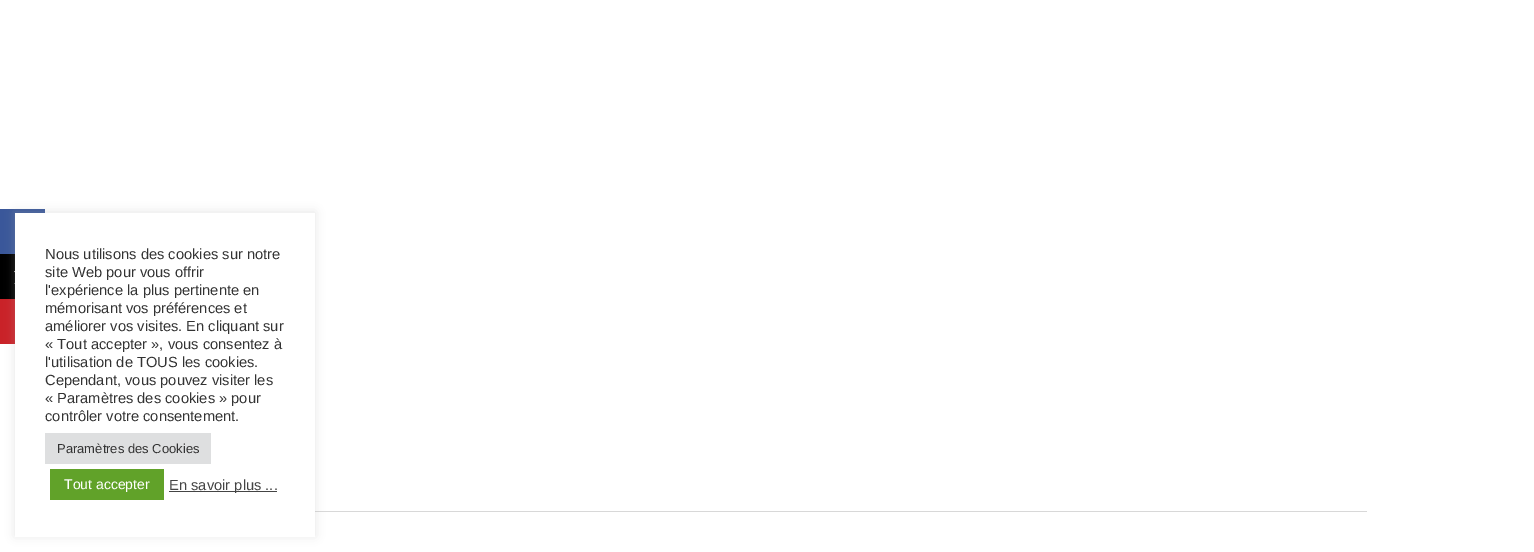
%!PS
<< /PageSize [1534 552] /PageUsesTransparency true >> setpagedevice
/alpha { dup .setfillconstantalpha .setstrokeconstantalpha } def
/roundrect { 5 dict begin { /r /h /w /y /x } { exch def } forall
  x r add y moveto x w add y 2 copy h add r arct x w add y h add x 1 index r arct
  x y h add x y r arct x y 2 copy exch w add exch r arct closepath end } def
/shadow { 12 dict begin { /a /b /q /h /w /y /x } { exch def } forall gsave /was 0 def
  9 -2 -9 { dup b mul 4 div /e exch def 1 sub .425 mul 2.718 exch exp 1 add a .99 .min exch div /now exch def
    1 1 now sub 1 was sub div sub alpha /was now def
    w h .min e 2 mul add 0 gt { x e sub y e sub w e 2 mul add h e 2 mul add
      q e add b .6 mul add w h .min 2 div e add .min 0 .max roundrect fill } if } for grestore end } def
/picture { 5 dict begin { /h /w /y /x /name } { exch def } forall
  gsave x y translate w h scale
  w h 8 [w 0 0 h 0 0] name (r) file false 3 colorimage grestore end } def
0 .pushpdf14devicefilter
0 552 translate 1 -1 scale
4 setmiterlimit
1 setgray
0 0 1534 552 rectfill
0.227 0.341 0.604 setrgbcolor
0 209 45 45 rectfill
0 setgray
0 254 15 45 rectfill
(img1.rgb) 14 271 1 13 picture
0.788 0.133 0.157 setrgbcolor
0 299 15 45 rectfill
0.847 setgray
315 511 1052 1 rectfill
0.675 0.671 0.671 setrgbcolor
15 212 300 324 0 5 0.3 shadow
1 setgray
15 213 300 324 rectfill
/LiberationSans-Regular [14.7 0 0 -14.7 0 0] selectfont
0.2 setgray
45 259 moveto (Nous utilisons des cookies sur notre) show
45 277 moveto (site Web pour vous offrir) show
45 295 moveto (l'expérience la plus pertinente en) show
45 313 moveto (mémorisant vos préférences et) show
45 331 moveto (améliorer vos visites. En cliquant sur) show
45 349 moveto (« Tout accepter », vous consentez à) show
45 367 moveto (l'utilisation de TOUS les cookies.) show
45 385 moveto (Cependant, vous pouvez visiter les) show
45 403 moveto (« Paramètres des cookies » pour) show
45 421 moveto (contrôler votre consentement.) show
0.871 0.875 0.878 setrgbcolor
45 433 166 31 rectfill
/LiberationSans-Regular [13 0 0 -13 0 0] selectfont
0.2 setgray
57 453 moveto (Paramètres des Cookies) show
0.38 0.635 0.161 setrgbcolor
50 469 114 31 rectfill
/LiberationSans-Regular [14 0 0 -14 0 0] selectfont
1 setgray
64 489 moveto (Tout accepter) show
0.267 setgray
169 491 108 1 rectfill
/LiberationSans-Regular [14.7 0 0 -14.7 0 0] selectfont
169 490 moveto (En savoir plus ...) show
.poppdf14devicefilter showpage
